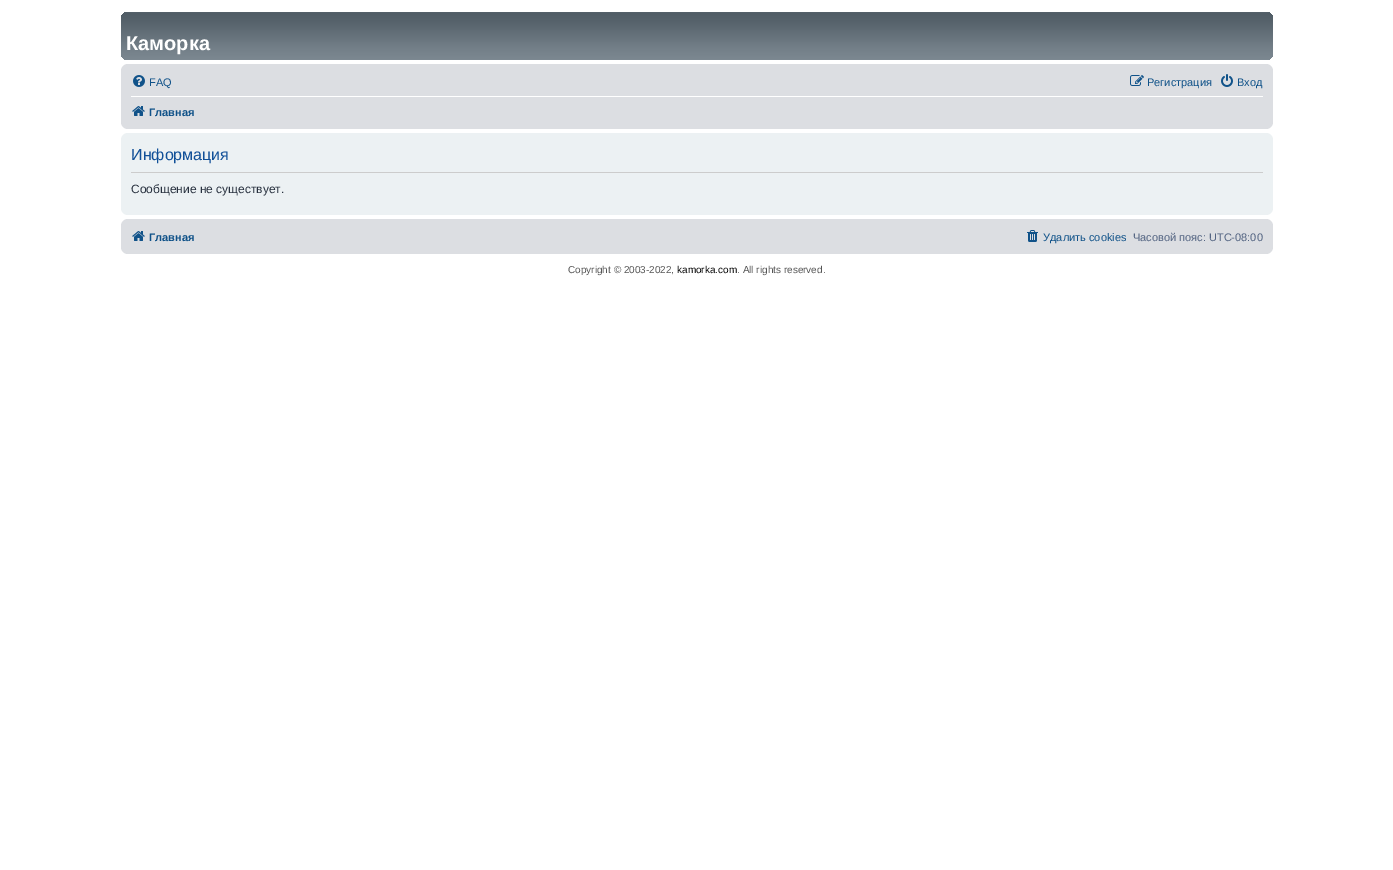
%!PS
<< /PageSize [1393 870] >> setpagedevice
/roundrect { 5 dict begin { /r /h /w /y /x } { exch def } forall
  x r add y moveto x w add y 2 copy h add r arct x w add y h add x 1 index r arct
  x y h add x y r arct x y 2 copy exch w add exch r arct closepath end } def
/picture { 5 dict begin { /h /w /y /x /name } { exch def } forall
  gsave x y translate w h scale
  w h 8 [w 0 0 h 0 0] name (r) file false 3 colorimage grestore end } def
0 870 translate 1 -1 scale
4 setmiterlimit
1 setgray
0 0 1393 870 rectfill
gsave 121 12 1152 48 7 roundrect clip newpath
<< /ShadingType 2 /ColorSpace /DeviceRGB /Coords [697 12 697 60] /Extend [true true] /Function << /FunctionType 3 /Domain [0 1] /Functions [<< /FunctionType 2 /Domain [0 1] /C0 [0.431 0.467 0.498] /C1 [0.314 0.361 0.396] /N 1 >> << /FunctionType 2 /Domain [0 1] /C0 [0.314 0.361 0.396] /C1 [0.337 0.384 0.42] /N 1 >> << /FunctionType 2 /Domain [0 1] /C0 [0.337 0.384 0.42] /C1 [0.451 0.498 0.533] /N 1 >> << /FunctionType 2 /Domain [0 1] /C0 [0.451 0.498 0.533] /C1 [0.486 0.533 0.569] /N 1 >>] /Bounds [0.01 0.2 0.75] /Encode [0 1 0 1 0 1 0 1] >> >> shfill grestore
/LiberationSans-Bold [20 0 0 -20 0 0] selectfont
126 50 moveto (Каморка) show
0.863 0.871 0.886 setrgbcolor
121 64 1152 65 7 roundrect fill
(img1.rgb) 133 75 12 12 picture
/LiberationSans-Regular [11 0 0 -11 0 0] selectfont
0.063 0.322 0.537 setrgbcolor
149 86 moveto (FAQ) show
(img2.rgb) 1130 75 14 11 picture
1147 86 moveto (Регистрация) show
(img3.rgb) 1221 74 12 13 picture
1237 86 moveto (Вход) show
1 setgray
131 96 1132 1 rectfill
(img4.rgb) 132 106 13 10 picture
/LiberationSans-Bold [11 0 0 -11 0 0] selectfont
0.063 0.322 0.537 setrgbcolor
149 116 moveto (Главная) show
0.925 0.945 0.953 setrgbcolor
121 133 1152 82 7 roundrect fill
0.8 setgray
131 172 1132 1 rectfill
/LiberationSans-Regular [16 0 0 -16 0 0] selectfont
0.067 0.314 0.596 setrgbcolor
131 160 moveto (Информация) show
/LiberationSans-Regular [12 0 0 -12 0 0] selectfont
0.157 0.192 0.247 setrgbcolor
131 193 moveto (Сообщение не существует.) show
0.863 0.871 0.886 setrgbcolor
121 219 1152 35 7 roundrect fill
(img4.rgb) 132 231 13 10 picture
/LiberationSans-Bold [11 0 0 -11 0 0] selectfont
0.063 0.322 0.537 setrgbcolor
149 241 moveto (Главная) show
(img5.rgb) 1027 230 11 12 picture
/LiberationSans-Regular [11 0 0 -11 0 0] selectfont
1043 241 moveto (Удалить cookies) show
0.325 0.392 0.51 setrgbcolor
1133 241 moveto (Часовой пояс: UTC-08:00) show
/LiberationSans-Regular [10 0 0 -10 0 0] selectfont
0.333 setgray
568 273 moveto (Copyright © 2003-2022,) show
0 setgray
677 273 moveto (kamorka.com) show
0.333 setgray
737 273 moveto (. All rights reserved.) show
showpage
